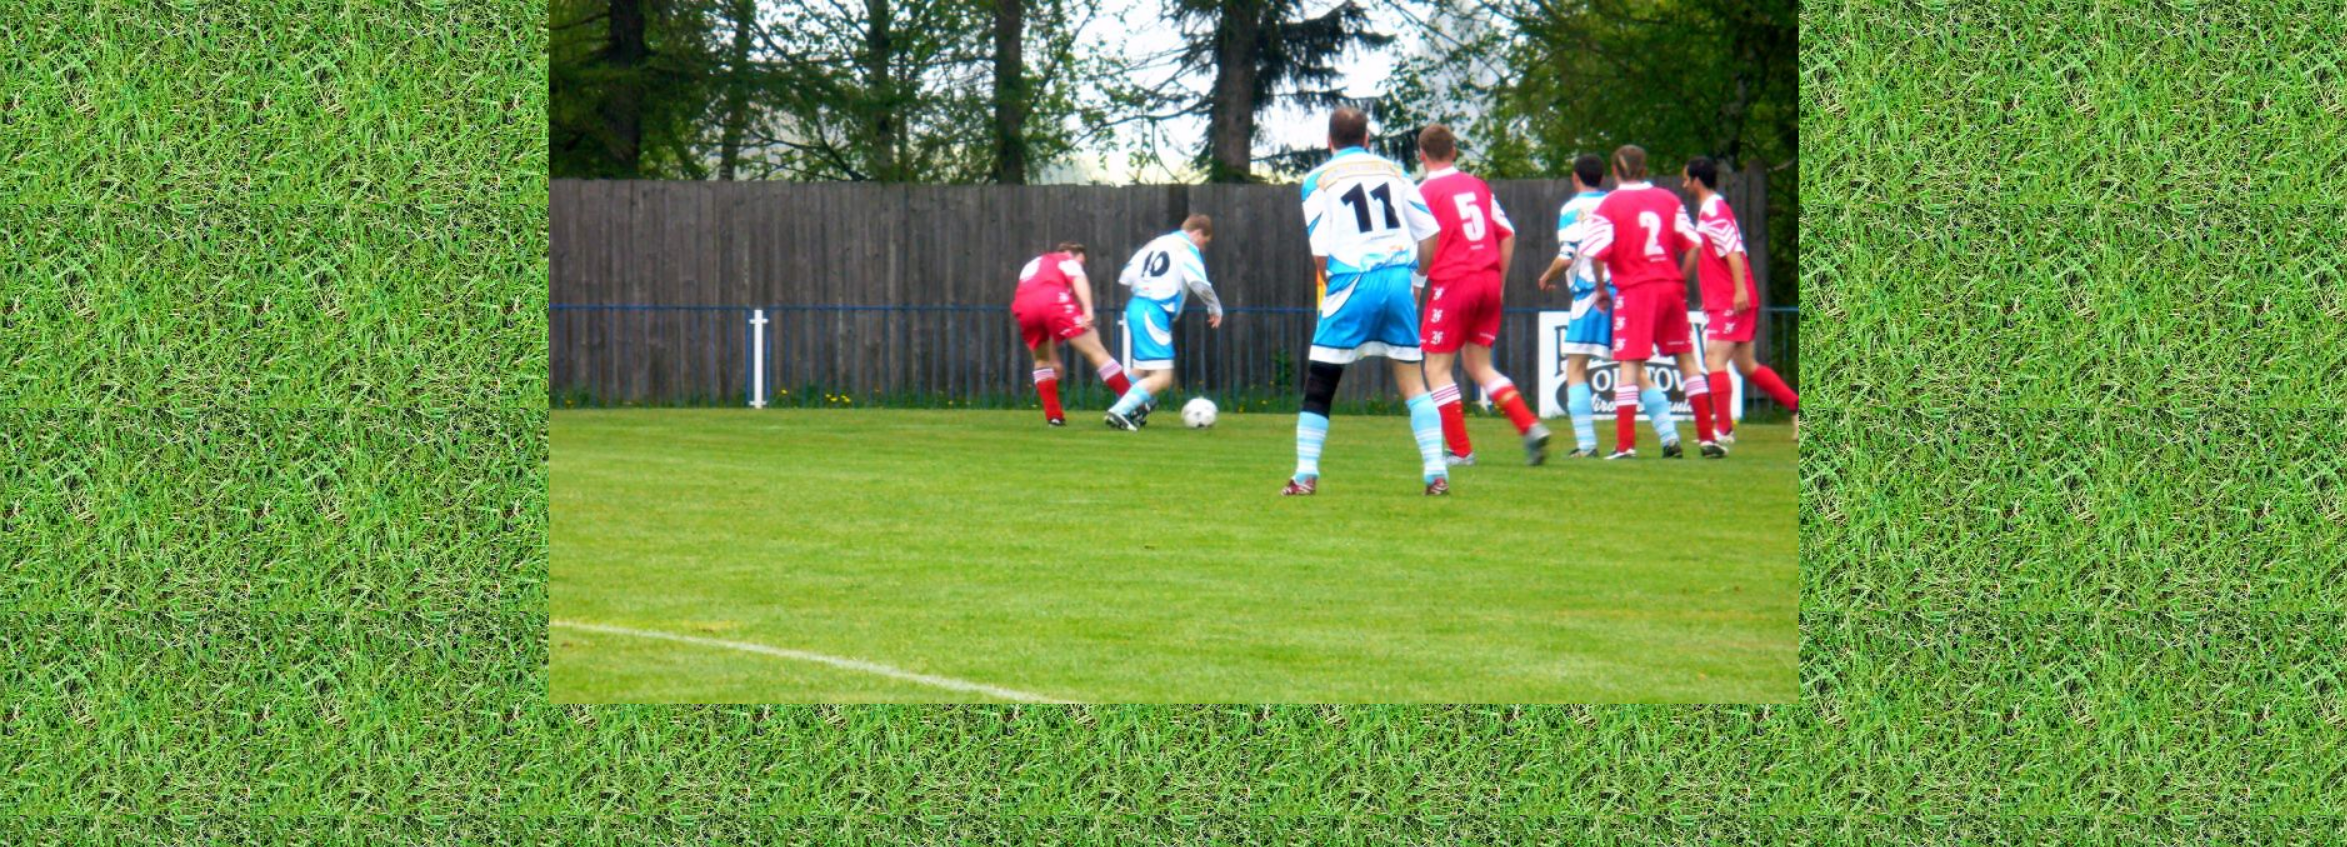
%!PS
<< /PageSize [2347 847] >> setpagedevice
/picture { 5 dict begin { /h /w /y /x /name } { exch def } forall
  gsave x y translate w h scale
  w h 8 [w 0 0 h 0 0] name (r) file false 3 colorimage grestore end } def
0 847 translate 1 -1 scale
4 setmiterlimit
1 setgray
0 0 2347 847 rectfill
(img1.rgb) 0 0 2347 847 picture
(img2.rgb) 548 0 1251 704 picture
showpage
